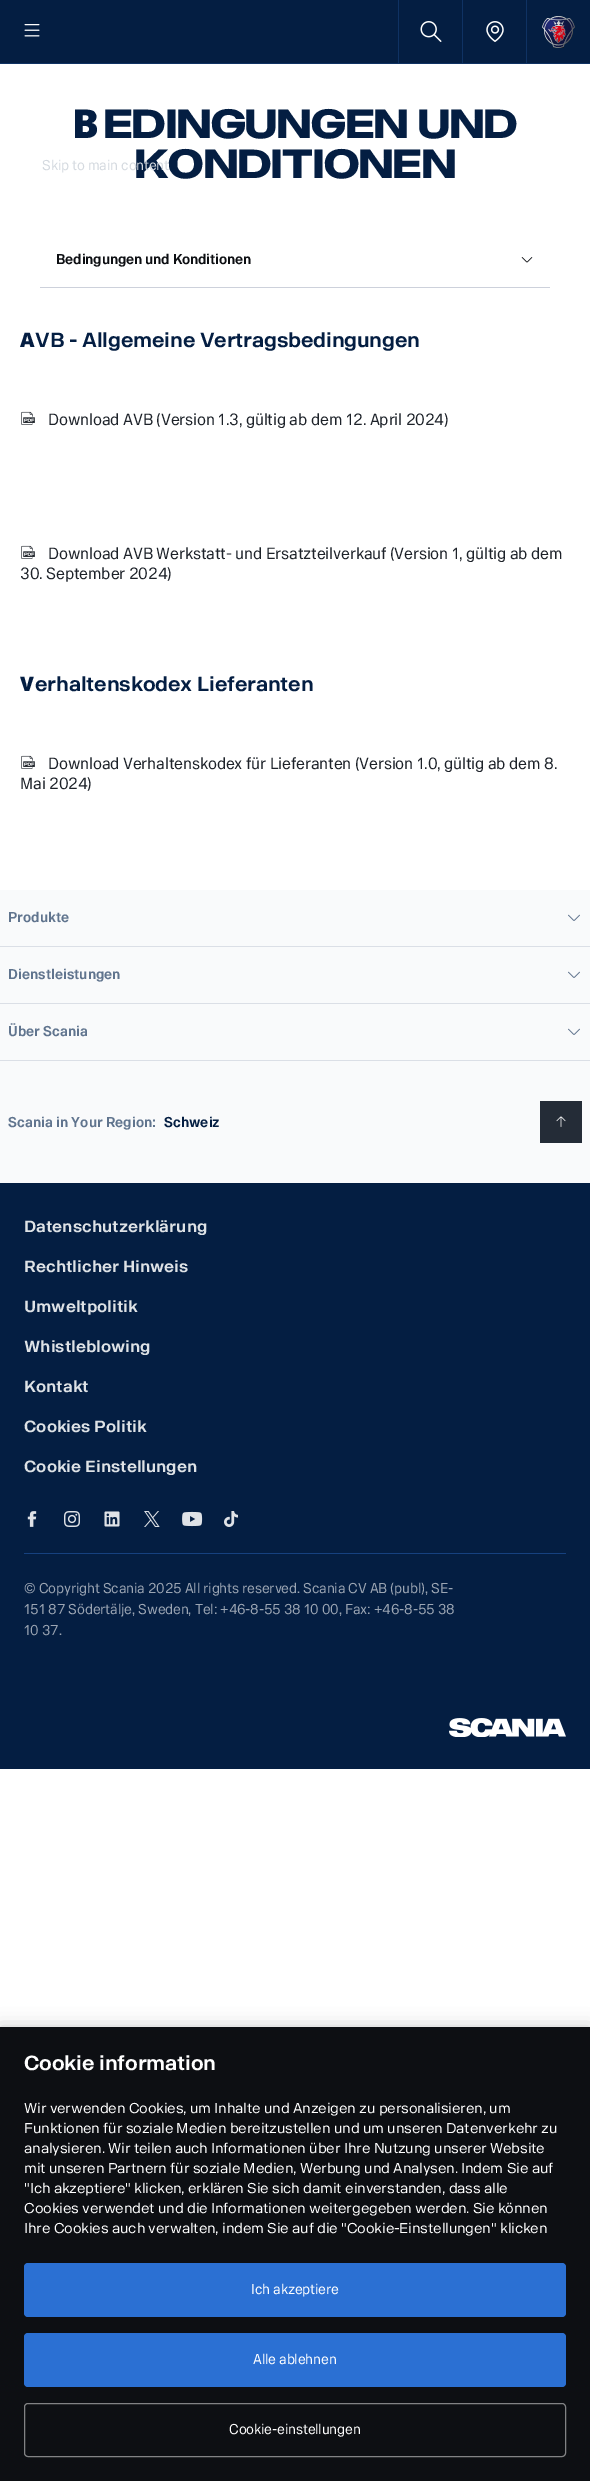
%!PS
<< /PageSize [590 2481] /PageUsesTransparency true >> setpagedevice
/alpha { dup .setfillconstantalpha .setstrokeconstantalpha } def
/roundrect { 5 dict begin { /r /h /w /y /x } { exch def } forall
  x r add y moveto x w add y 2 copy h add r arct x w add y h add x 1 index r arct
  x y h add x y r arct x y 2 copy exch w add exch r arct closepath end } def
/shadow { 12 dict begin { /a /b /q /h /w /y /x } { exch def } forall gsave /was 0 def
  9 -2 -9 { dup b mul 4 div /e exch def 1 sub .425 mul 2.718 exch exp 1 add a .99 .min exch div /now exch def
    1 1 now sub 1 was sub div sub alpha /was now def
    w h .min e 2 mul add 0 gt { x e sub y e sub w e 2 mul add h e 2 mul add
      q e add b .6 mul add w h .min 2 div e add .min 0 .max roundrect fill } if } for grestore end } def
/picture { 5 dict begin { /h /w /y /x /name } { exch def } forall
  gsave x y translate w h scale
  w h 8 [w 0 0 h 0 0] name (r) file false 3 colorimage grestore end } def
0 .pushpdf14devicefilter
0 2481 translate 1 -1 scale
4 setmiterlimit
1 setgray
0 0 590 2481 rectfill
/NotoSans-Black [40 0 0 -40 0 0] selectfont
0.016 0.118 0.259 setrgbcolor
72 138 moveto (B) show
/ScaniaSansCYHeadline-Bold [40 0 0 -40 0 0] selectfont
104 138 moveto (edingungen und) show
135 178 moveto (Konditionen) show
0.804 0.82 0.859 setrgbcolor
40 287 510 1 rectfill
/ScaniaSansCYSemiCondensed-Bold [14 0 0 -14 0 0] selectfont
0.051 0.059 0.075 setrgbcolor
56 264 moveto -0.15 0 (Bedingungen und Konditionen) ashow
(img1.rgb) 521 257 12 6 picture
/NotoSans-Black [20 0 0 -20 0 0] selectfont
0.016 0.118 0.259 setrgbcolor
20 347 moveto -0.2 0 (A) ashow
/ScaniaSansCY-Bold [20 0 0 -20 0 0] selectfont
35 347 moveto -0.2 0 (VB - Allgemeine Vertragsbedingungen) ashow
(img2.rgb) 21 411 14 14 picture
/ScaniaSansCYSemiCondensed-Regular [16 0 0 -16 0 0] selectfont
0.114 0.133 0.161 setrgbcolor
48 425 moveto -0.15 0 (Download AVB \(Version 1.3, gültig ab dem 12. April 2024\)) ashow
(img2.rgb) 21 545 14 14 picture
48 559 moveto -0.15 0 (Download AVB Werkstatt- und Ersatzteilverkauf \(Version 1, gültig ab dem) ashow
20 579 moveto -0.15 0 (30. September 2024\)) ashow
/NotoSans-Black [20 0 0 -20 0 0] selectfont
0.016 0.118 0.259 setrgbcolor
20 691 moveto -0.2 0 (V) ashow
/ScaniaSansCY-Bold [20 0 0 -20 0 0] selectfont
35 691 moveto -0.2 0 (erhaltenskodex Lieferanten) ashow
(img2.rgb) 21 755 14 14 picture
/ScaniaSansCYSemiCondensed-Regular [16 0 0 -16 0 0] selectfont
0.114 0.133 0.161 setrgbcolor
48 769 moveto -0.15 0 (Download Verhaltenskodex für Lieferanten \(Version 1.0, gültig ab dem 8.) ashow
20 789 moveto -0.15 0 (Mai 2024\)) ashow
0.016 0.118 0.259 setrgbcolor
0 0 590 63 rectfill
0.059 0.196 0.388 setrgbcolor
0 63 590 1 rectfill
(img3.rgb) 24 24 16 13 picture
398 0 1 63 rectfill
(img4.rgb) 420 21 22 21 picture
462 0 1 63 rectfill
(img5.rgb) 486 21 18 21 picture
526 0 1 63 rectfill
(img6.rgb) 542 16 33 32 picture
/ScaniaSansCYSemiCondensed-Regular [14 0 0 -14 0 0] selectfont
0.831 0.851 0.875 setrgbcolor
42 170 moveto -0.15 0 (Skip to main content) ashow
0.976 0.98 0.984 setrgbcolor
0 890 590 293 rectfill
0.859 0.875 0.902 setrgbcolor
0 946 590 1 rectfill
/ScaniaSansCYSemiCondensed-Bold [14 0 0 -14 0 0] selectfont
0.376 0.455 0.557 setrgbcolor
8 922 moveto (Produkte) show
(img7.rgb) 568 914 12 7 picture
0.859 0.875 0.902 setrgbcolor
0 1003 590 1 rectfill
0.376 0.455 0.557 setrgbcolor
8 979 moveto (Dienstleistungen) show
(img7.rgb) 568 971 12 7 picture
0.859 0.875 0.902 setrgbcolor
0 1060 590 1 rectfill
0.376 0.455 0.557 setrgbcolor
8 1036 moveto (Über Scania) show
(img7.rgb) 568 1028 12 7 picture
8 1127 moveto (Scania in Your Region:) show
0.016 0.118 0.259 setrgbcolor
164 1127 moveto (Schweiz) show
0.141 0.173 0.216 setrgbcolor
540 1101 42 42 rectfill
(img8.rgb) 556 1116 10 11 picture
0.016 0.118 0.259 setrgbcolor
0 1183 590 586 rectfill
/ScaniaSansCY-Bold [16 0 0 -16 0 0] selectfont
0.871 0.886 0.902 setrgbcolor
24 1232 moveto (Datenschutzerklärung) show
24 1272 moveto (Rechtlicher Hinweis) show
24 1312 moveto (Umweltpolitik) show
24 1352 moveto (Whistleblowing) show
24 1392 moveto (Kontakt) show
24 1432 moveto (Cookies Politik) show
24 1472 moveto (Cookie Einstellungen) show
(img9.rgb) 27 1511 10 16 picture
(img10.rgb) 64 1511 16 16 picture
(img11.rgb) 104 1511 16 16 picture
(img12.rgb) 144 1511 16 16 picture
(img13.rgb) 182 1511 21 16 picture
(img14.rgb) 224 1511 14 16 picture
(img15.rgb) 449 1718 117 19 picture
0.086 0.255 0.498 setrgbcolor
24 1553 542 1 rectfill
/ScaniaSansCYSemiCondensed-Regular [14 0 0 -14 0 0] selectfont
0.608 0.647 0.702 setrgbcolor
24 1593 moveto -0.15 0 (© Copyright Scania 2025 All rights reserved. Scania CV AB \(publ\), SE-) ashow
24 1614 moveto -0.15 0 (151 87 Södertälje, Sweden, Tel: +46-8-55 38 10 00, Fax: +46-8-55 38) ashow
24 1635 moveto -0.15 0 (10 37.) ashow
0 setgray
0 2027 590 454 0 9 0.2 shadow
0.051 0.059 0.075 setrgbcolor
0 2027 590 454 rectfill
/ScaniaSansCY-Bold [20 0 0 -20 0 0] selectfont
1 setgray
24 2070 moveto -0.2 0 (Cookie information) ashow
/ScaniaSansCY-Regular [14 0 0 -14 0 0] selectfont
24 2113 moveto -0.15 0 (Wir verwenden Cookies, um Inhalte und Anzeigen zu personalisieren, um) ashow
24 2133 moveto -0.15 0 (Funktionen für soziale Medien bereitzustellen und um unseren Datenverkehr zu) ashow
24 2153 moveto -0.15 0 (analysieren. Wir teilen auch Informationen über Ihre Nutzung unserer Website) ashow
24 2173 moveto -0.15 0 (mit unseren Partnern für soziale Medien, Werbung und Analysen. Indem Sie auf) ashow
24 2193 moveto -0.15 0 ("Ich akzeptiere" klicken, erklären Sie sich damit einverstanden, dass alle) ashow
24 2213 moveto -0.15 0 (Cookies verwendet und die Informationen weitergegeben werden. Sie können) ashow
24 2233 moveto -0.15 0 (Ihre Cookies auch verwalten, indem Sie auf die "Cookie-Einstellungen" klicken) ashow
0.169 0.439 0.827 setrgbcolor
24 2263 542 54 4 roundrect fill
/ScaniaSansCYSemiCondensed-Regular [14 0 0 -14 0 0] selectfont
1 setgray
251 2294 moveto -0.15 0 (Ich akzeptiere) ashow
0.169 0.439 0.827 setrgbcolor
24 2333 542 54 4 roundrect fill
1 setgray
253 2364 moveto -0.15 0 (Alle ablehnen) ashow
0.506 0.51 0.518 setrgbcolor
24.5 2403.5 541 53 3.5 roundrect stroke
1 setgray
229 2434 moveto -0.15 0 (Cookie-einstellungen) ashow
.poppdf14devicefilter showpage
